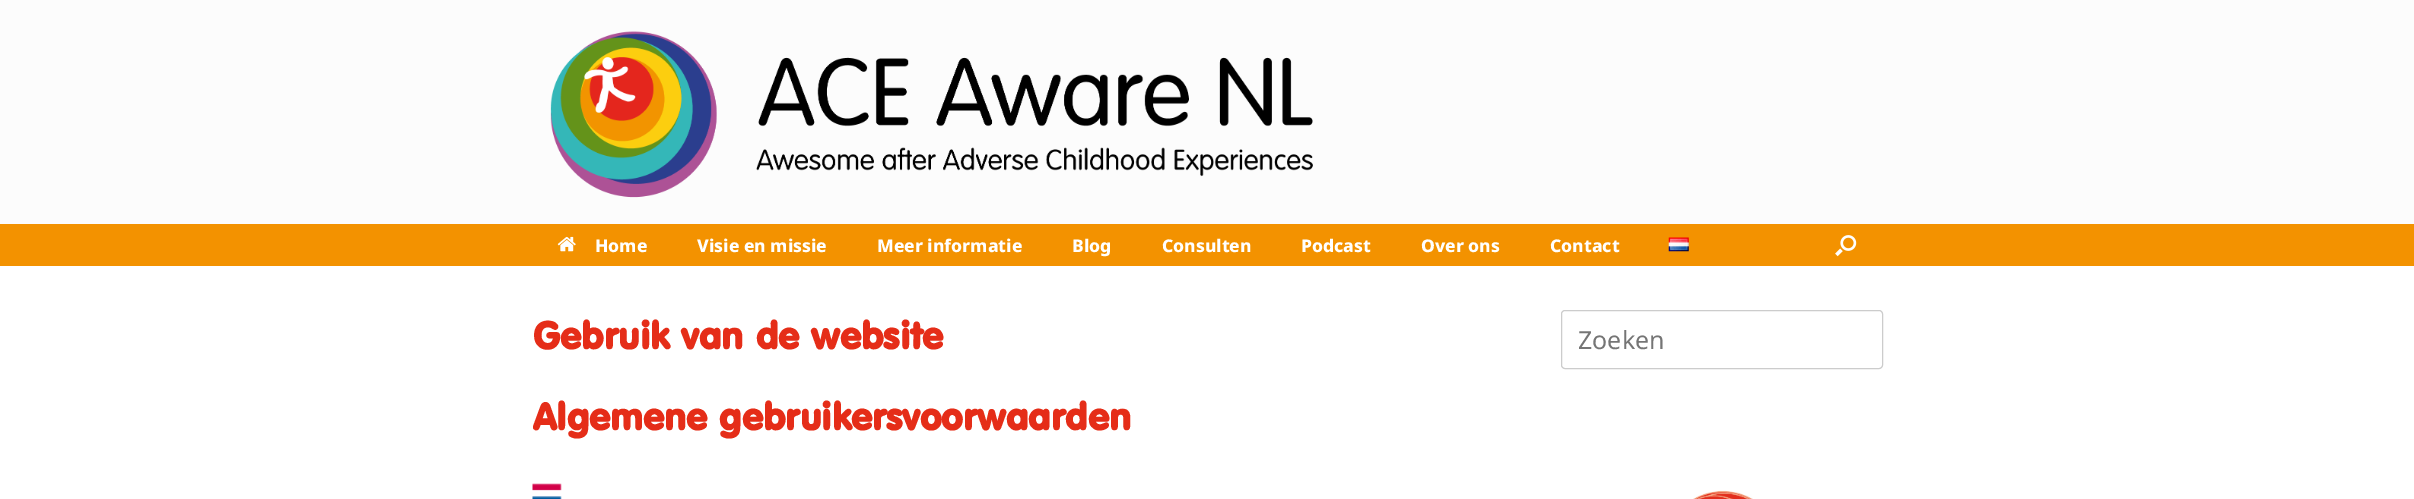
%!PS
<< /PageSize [2414 499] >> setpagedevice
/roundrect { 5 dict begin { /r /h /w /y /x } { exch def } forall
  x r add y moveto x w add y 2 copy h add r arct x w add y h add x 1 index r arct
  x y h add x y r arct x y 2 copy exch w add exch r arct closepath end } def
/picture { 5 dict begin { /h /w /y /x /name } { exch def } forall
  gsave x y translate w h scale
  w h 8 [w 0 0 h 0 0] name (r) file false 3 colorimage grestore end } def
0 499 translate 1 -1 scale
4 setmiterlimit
1 setgray
0 0 2414 499 rectfill
0.988 setgray
0 0 2414 224 rectfill
(img1.rgb) 550 31 763 167 picture
0.953 0.573 0 setrgbcolor
0 224 2414 42 rectfill
(img2.rgb) 557 236 19 16 picture
/NotoSans-ExtraBold [17.5 0 0 -17.5 0 0] selectfont
1 setgray
595 252 moveto (Home) show
697 252 moveto (Visie en missie) show
877 252 moveto (Meer informatie) show
1072 252 moveto (Blog) show
1162 252 moveto (Consulten) show
1301 252 moveto (Podcast) show
1421 252 moveto (Over ons) show
1550 252 moveto (Contact) show
(img3.rgb) 1668 237 21 15 picture
(img4.rgb) 1835 235 22 22 picture
/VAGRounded-Bold [37.5 0 0 -37.5 0 0] selectfont
0.898 0.176 0.094 setrgbcolor
533 349 moveto (Gebruik van de website) show
533 430 moveto (Algemene gebruikersvoorwaarden) show
(img5.rgb) 532 483 30 16 picture
0.8 setgray
1561.5 310.5 321 58 3.5 roundrect stroke
/NotoSans-Regular [25 0 0 -25 0 0] selectfont
0.459 setgray
1578 349 moveto (Zoeken) show
(img6.rgb) 1693 490 60 9 picture
showpage
